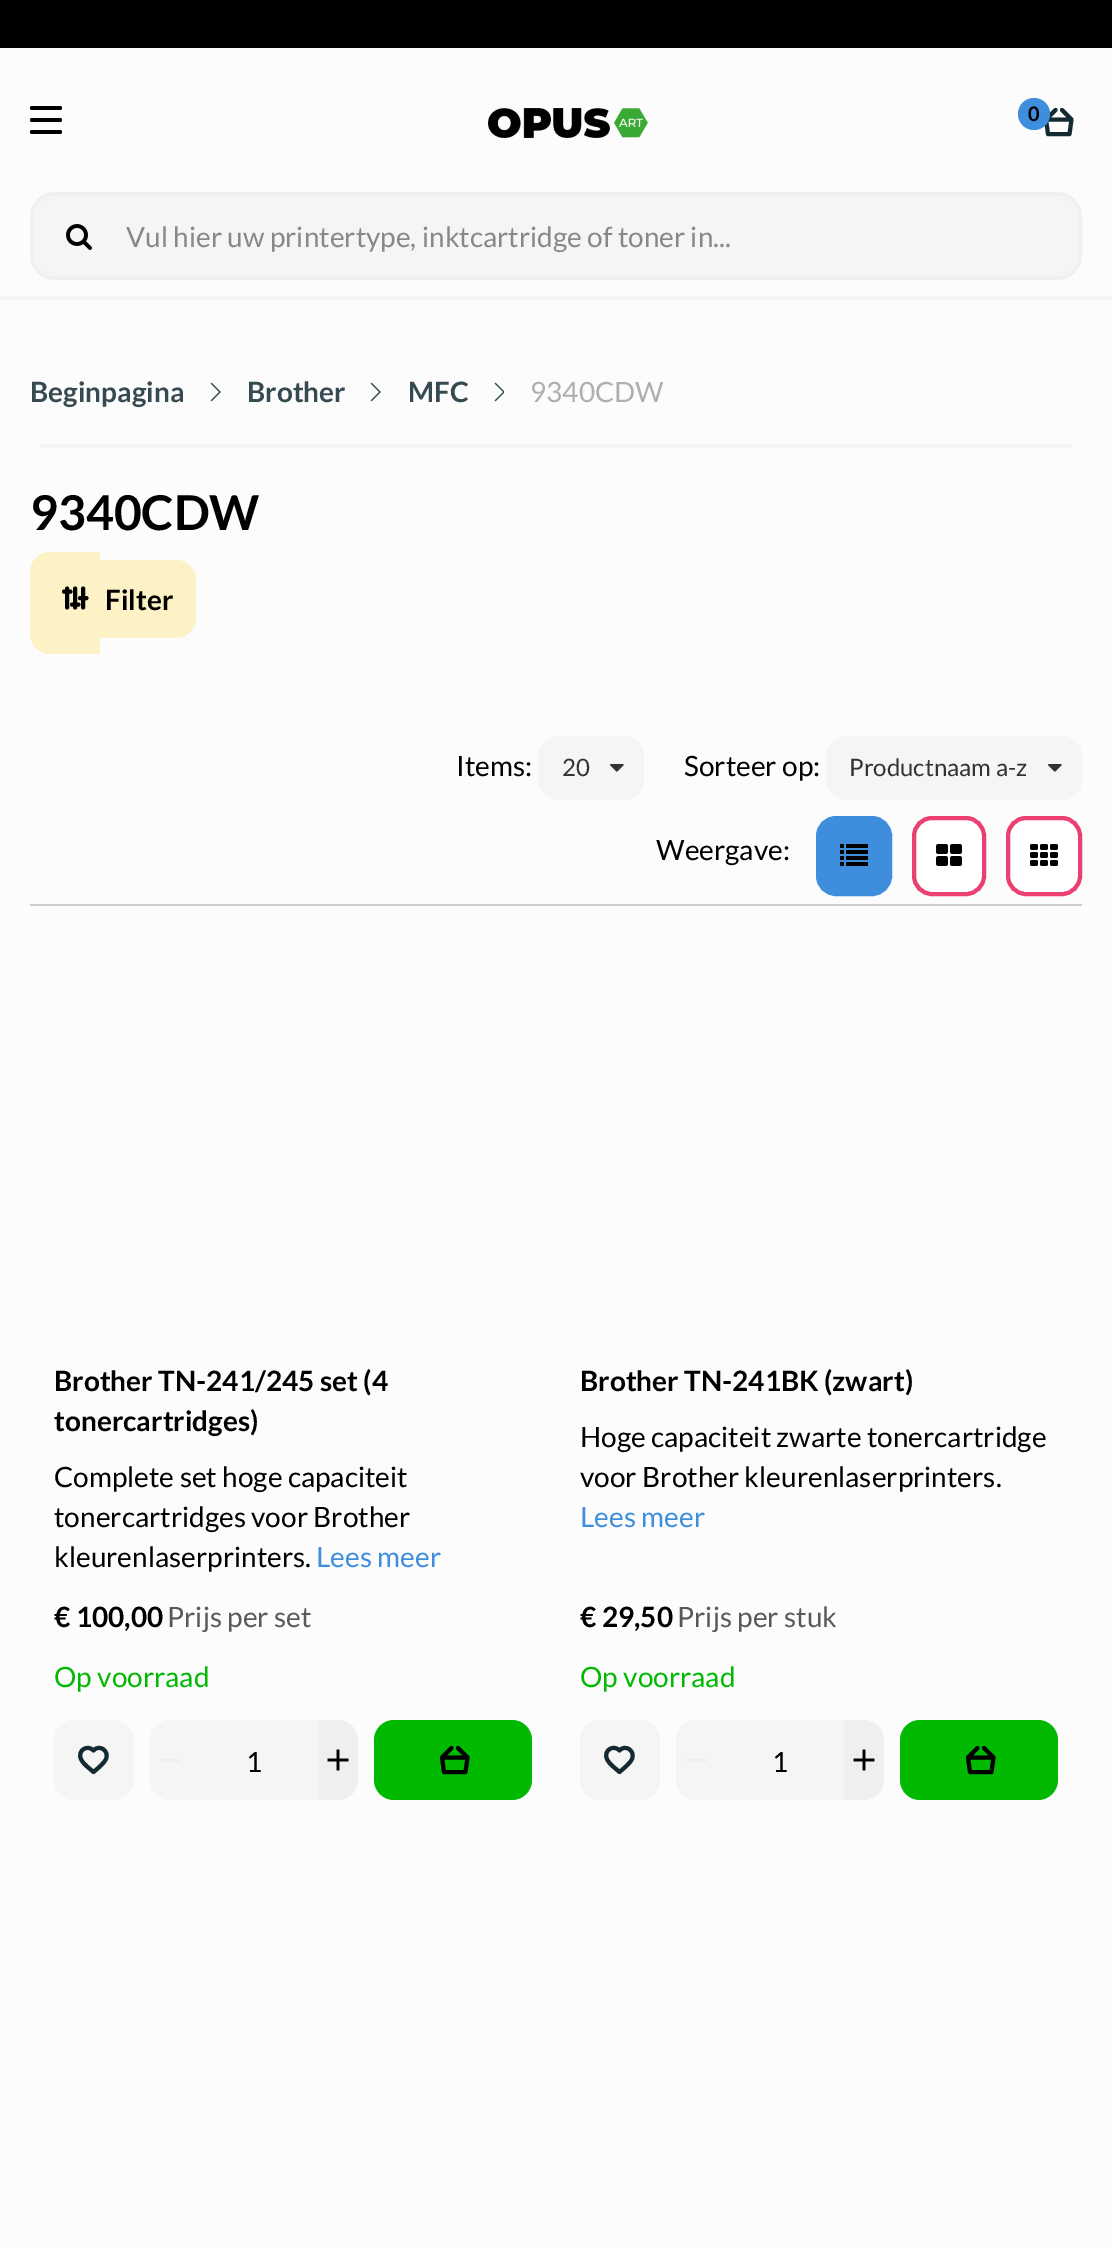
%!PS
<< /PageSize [1112 2247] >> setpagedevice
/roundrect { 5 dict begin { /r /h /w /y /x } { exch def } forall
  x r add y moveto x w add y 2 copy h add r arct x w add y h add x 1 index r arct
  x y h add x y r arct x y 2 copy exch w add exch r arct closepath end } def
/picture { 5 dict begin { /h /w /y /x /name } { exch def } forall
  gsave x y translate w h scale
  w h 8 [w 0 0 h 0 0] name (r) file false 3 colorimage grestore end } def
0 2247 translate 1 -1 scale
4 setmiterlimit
0.988 setgray
0 0 1112 2247 rectfill
0 setgray
0 0 1112 48 rectfill
30 106 32 4 2 roundrect fill
30 118 32 4 2 roundrect fill
30 130 32 4 2 roundrect fill
(img1.rgb) 488 108 160 30 picture
0.075 0.165 0.196 setrgbcolor
4 setlinewidth
1 setlinecap
1 setlinejoin
newpath 1062 110 moveto 1071.5 119.5 lineto 1069.5 134 lineto 1048 134 lineto 1046 119.5 lineto 1055.5 110 lineto 1046 119.5 moveto 1071.5 119.5 lineto stroke
0.243 0.557 0.867 setrgbcolor
newpath 1034 114 16 0 360 arc closepath fill
/Lato-Bold [20 0 0 -20 0 0] selectfont
0 setgray
1028 121 moveto (0) show
0.965 0.961 0.961 setrgbcolor
0 296 1112 4 rectfill
0.941 setgray
0 setlinecap
0 setlinejoin
32 194 1048 84 22 roundrect stroke
0.965 0.961 0.961 setrgbcolor
newpath 54 196 moveto 122 196 lineto 122 276 lineto 54 276 lineto 43 276 34 267 34 256 curveto 34 216 lineto 34 205 43 196 54 196 curveto closepath fill
(img2.rgb) 66 224 26 26 picture
newpath 122 196 moveto 1058 196 lineto 1069 196 1078 205 1078 216 curveto 1078 256 lineto 1078 267 1069 276 1058 276 curveto 122 276 lineto closepath fill
/Lato-Regular [28 0 0 -28 0 0] selectfont
0.545 0.529 0.525 setrgbcolor
126 247 moveto (Vul hier uw printertype, inktcartridge of toner in...) show
0.965 0.961 0.961 setrgbcolor
40 444 1032 4 rectfill
/Lato-Bold [28 0 0 -28 0 0] selectfont
0.212 0.29 0.318 setrgbcolor
30 402 moveto (Beginpagina) show
(img3.rgb) 210 382 11 20 picture
247 402 moveto (Brother) show
(img3.rgb) 370 382 11 20 picture
408 402 moveto (MFC) show
(img4.rgb) 494 382 10 20 picture
/Lato-Regular [28 0 0 -28 0 0] selectfont
0.698 0.682 0.682 setrgbcolor
530 402 moveto (9340CDW) show
/Lato-Bold [48 0 0 -48 0 0] selectfont
0 setgray
30 530 moveto (9340CDW) show
0.992 0.949 0.773 setrgbcolor
newpath 50 552 moveto 100 552 lineto 100 654 lineto 50 654 lineto 39 654 30 645 30 634 curveto 30 572 lineto 30 561 39 552 50 552 curveto closepath fill
100 560 6 78 rectfill
newpath 106 560 moveto 176 560 lineto 187 560 196 569 196 580 curveto 196 618 lineto 196 629 187 638 176 638 curveto 106 638 lineto closepath fill
0 setgray
1 setlinecap
1 setlinejoin
newpath 83 607.5 moveto 83 588.5 lineto 75 607.5 moveto 75 588.5 lineto 67 607.5 moveto 67 588.5 lineto 64 591.5 moveto 70.5 591.5 lineto 72 604.5 moveto 78.5 604.5 lineto 80 598 moveto 86.5 598 lineto stroke
/Lato-Bold [28 0 0 -28 0 0] selectfont
105 610 moveto (Filter) show
0.8 setgray
30 904 1052 2 rectfill
/Lato-Regular [28 0 0 -28 0 0] selectfont
0 setgray
456 776 moveto (Items:) show
0.965 0.961 0.961 setrgbcolor
538 736 106 64 20 roundrect fill
/Lato-Regular [24 0 0 -24 0 0] selectfont
0.2 setgray
562 776 moveto (20) show
(img5.rgb) 610 764 14 8 picture
/Lato-Regular [28 0 0 -28 0 0] selectfont
0 setgray
684 776 moveto (Sorteer op:) show
0.965 0.961 0.961 setrgbcolor
826 736 256 64 20 roundrect fill
/Lato-Regular [24 0 0 -24 0 0] selectfont
0.2 setgray
849 776 moveto (Productnaam a-z) show
(img5.rgb) 1048 764 14 8 picture
/Lato-Regular [28 0 0 -28 0 0] selectfont
0 setgray
656 860 moveto (Weergave:) show
0.243 0.557 0.867 setrgbcolor
818 818 72 76 18 roundrect gsave fill grestore
0 setlinecap
0 setlinejoin
stroke
(img6.rgb) 840 844 28 22 picture
1 setgray
914 818 70 76 18 roundrect gsave fill grestore
0.922 0.251 0.443 setrgbcolor
stroke
(img7.rgb) 936 844 26 22 picture
1 setgray
1008 818 72 76 18 roundrect gsave fill grestore
0.922 0.251 0.443 setrgbcolor
stroke
(img8.rgb) 1030 844 28 22 picture
/Lato-Bold [28 0 0 -28 0 0] selectfont
0 setgray
54 1391 moveto (Brother TN-241/245 set \(4) show
54 1431 moveto (tonercartridges\)) show
/Lato-Regular [28 0 0 -28 0 0] selectfont
54 1487 moveto (Complete set hoge capaciteit) show
54 1527 moveto (tonercartridges voor Brother) show
54 1567 moveto (kleurenlaserprinters.) show
0.243 0.557 0.867 setrgbcolor
316 1567 moveto (Lees meer) show
/Lato-Bold [28 0 0 -28 0 0] selectfont
0 setgray
54 1627 moveto (€ 100,00) show
/Lato-Regular [28 0 0 -28 0 0] selectfont
0.349 setgray
167 1627 moveto (Prijs per set) show
0.008 0.725 0.008 setrgbcolor
54 1687 moveto (Op voorraad) show
0.965 0.961 0.961 setrgbcolor
54 1720 80 80 20 roundrect fill
0.075 0.165 0.196 setrgbcolor
1 setlinecap
1 setlinejoin
newpath 93.5 1772 moveto 89 1768 83 1764 81 1759 curveto 77 1750.5 87.5 1744 93.5 1750.5 curveto 99 1744 109.5 1750.5 106 1759 curveto 103.5 1764 97.5 1768.5 93.5 1772 curveto closepath stroke
0.965 0.961 0.961 setrgbcolor
newpath 170 1720 moveto 190 1720 lineto 190 1800 lineto 170 1800 lineto 159 1800 150 1791 150 1780 curveto 150 1740 lineto 150 1729 159 1720 170 1720 curveto closepath fill
0.937 setgray
160 1759 21 3 rectfill
0.965 0.961 0.961 setrgbcolor
190 1720 128 80 rectfill
0 setgray
246 1772 moveto (1) show
0.937 setgray
newpath 318 1720 moveto 338 1720 lineto 349 1720 358 1729 358 1740 curveto 358 1780 lineto 358 1791 349 1800 338 1800 curveto 318 1800 lineto closepath fill
(img9.rgb) 327 1749 22 22 picture
0 0.725 0 setrgbcolor
374 1720 158 80 20 roundrect fill
0 setgray
newpath 458 1748 moveto 467.5 1757.5 lineto 465.5 1772 lineto 444 1772 lineto 442 1757.5 lineto 451.5 1748 lineto 442 1757.5 moveto 467.5 1757.5 lineto stroke
/Lato-Bold [28 0 0 -28 0 0] selectfont
580 1391 moveto (Brother TN-241BK \(zwart\)) show
/Lato-Regular [28 0 0 -28 0 0] selectfont
580 1447 moveto (Hoge capaciteit zwarte tonercartridge) show
580 1487 moveto (voor Brother kleurenlaserprinters.) show
0.243 0.557 0.867 setrgbcolor
580 1527 moveto (Lees meer) show
/Lato-Bold [28 0 0 -28 0 0] selectfont
0 setgray
580 1627 moveto (€ 29,50) show
/Lato-Regular [28 0 0 -28 0 0] selectfont
0.349 setgray
677 1627 moveto (Prijs per stuk) show
0.008 0.725 0.008 setrgbcolor
580 1687 moveto (Op voorraad) show
0.965 0.961 0.961 setrgbcolor
580 1720 80 80 20 roundrect fill
0.075 0.165 0.196 setrgbcolor
newpath 619.5 1772 moveto 615 1768 609 1764 607 1759 curveto 603 1750.5 613.5 1744 619.5 1750.5 curveto 625 1744 635.5 1750.5 632 1759 curveto 629.5 1764 623.5 1768.5 619.5 1772 curveto closepath stroke
0.965 0.961 0.961 setrgbcolor
newpath 696 1720 moveto 716 1720 lineto 716 1800 lineto 696 1800 lineto 685 1800 676 1791 676 1780 curveto 676 1740 lineto 676 1729 685 1720 696 1720 curveto closepath fill
0.937 setgray
686 1759 21 3 rectfill
0.965 0.961 0.961 setrgbcolor
716 1720 128 80 rectfill
0 setgray
772 1772 moveto (1) show
0.937 setgray
newpath 844 1720 moveto 864 1720 lineto 875 1720 884 1729 884 1740 curveto 884 1780 lineto 884 1791 875 1800 864 1800 curveto 844 1800 lineto closepath fill
(img9.rgb) 853 1749 22 22 picture
0 0.725 0 setrgbcolor
900 1720 158 80 20 roundrect fill
0 setgray
newpath 984 1748 moveto 993.5 1757.5 lineto 991.5 1772 lineto 970 1772 lineto 968 1757.5 lineto 977.5 1748 lineto 968 1757.5 moveto 993.5 1757.5 lineto stroke
showpage
